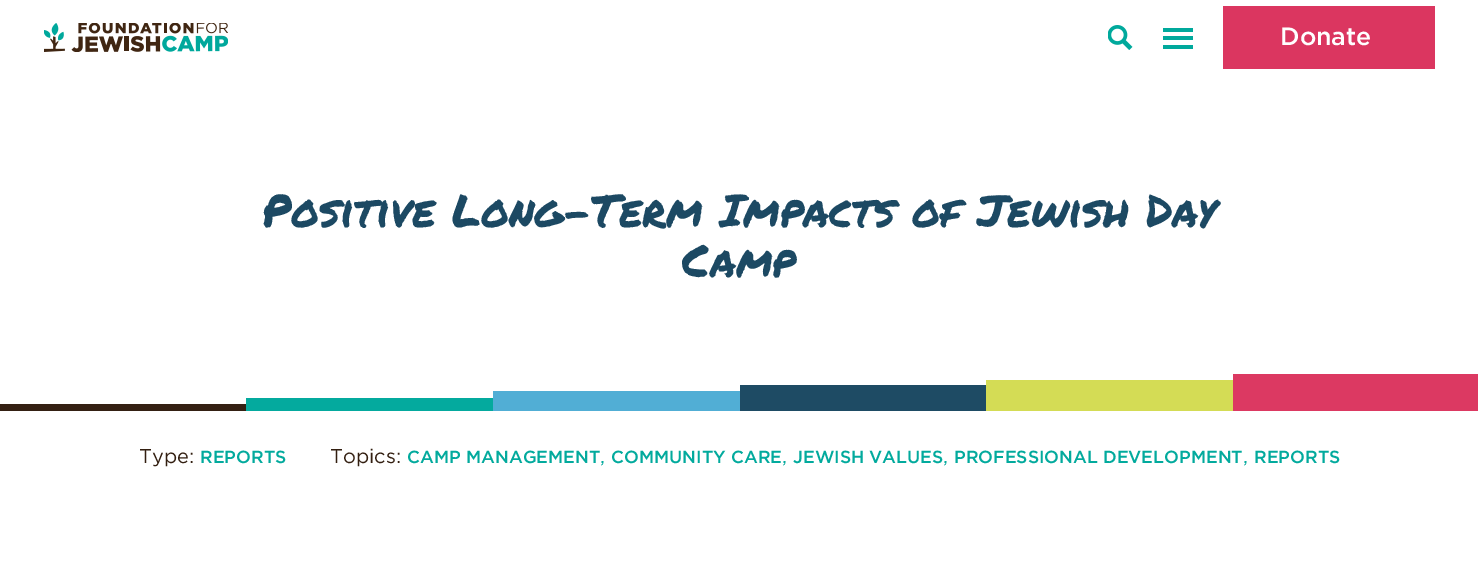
%!PS
<< /PageSize [1478 573] >> setpagedevice
/picture { 5 dict begin { /h /w /y /x /name } { exch def } forall
  gsave x y translate w h scale
  w h 8 [w 0 0 h 0 0] name (r) file false 3 colorimage grestore end } def
0 573 translate 1 -1 scale
4 setmiterlimit
1 setgray
0 0 1478 573 rectfill
(img1.rgb) 44 23 184 29 picture
(img2.rgb) 1108 25 25 25 picture
0 0.663 0.612 setrgbcolor
1163 28 30 4 rectfill
1163 36 30 4 rectfill
1163 45 30 4 rectfill
0.859 0.212 0.376 setrgbcolor
1223 6 212 63 rectfill
/Gotham-Medium [25 0 0 -25 0 0] selectfont
1 setgray
1280 45 moveto (Donate) show
/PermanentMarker-Regular [45 0 0 -45 0 0] selectfont
0.11 0.286 0.388 setrgbcolor
262 227 moveto (Positive Long-Term Impacts of Jewish Day) show
682 277 moveto (Camp) show
0.204 0.125 0.075 setrgbcolor
0 404 246 7 rectfill
0.016 0.667 0.62 setrgbcolor
246 398 247 13 rectfill
0.318 0.682 0.835 setrgbcolor
493 391 247 20 rectfill
0.118 0.294 0.392 setrgbcolor
740 385 246 26 rectfill
0.831 0.863 0.333 setrgbcolor
986 380 247 31 rectfill
0.863 0.224 0.384 setrgbcolor
1233 374 245 37 rectfill
/Gotham-Regular [20 0 0 -20 0 0] selectfont
0.2 0.122 0.067 setrgbcolor
139 463 moveto (Type:) show
/Gotham-Medium [17.5 0 0 -17.5 0 0] selectfont
0.008 0.667 0.616 setrgbcolor
200 463 moveto (REPORTS) show
/Gotham-Regular [20 0 0 -20 0 0] selectfont
0.2 0.122 0.067 setrgbcolor
330 463 moveto (Topics:) show
/Gotham-Medium [17.5 0 0 -17.5 0 0] selectfont
0.008 0.667 0.616 setrgbcolor
407 463 moveto (CAMP MANAGEMENT) show
/Gotham-Regular [20 0 0 -20 0 0] selectfont
600 463 moveto (,) show
/Gotham-Medium [17.5 0 0 -17.5 0 0] selectfont
611 463 moveto (COMMUNITY CARE) show
/Gotham-Regular [20 0 0 -20 0 0] selectfont
782 463 moveto (,) show
/Gotham-Medium [17.5 0 0 -17.5 0 0] selectfont
793 463 moveto (JEWISH VALUES) show
/Gotham-Regular [20 0 0 -20 0 0] selectfont
943 463 moveto (,) show
/Gotham-Medium [17.5 0 0 -17.5 0 0] selectfont
954 463 moveto (PROFESSIONAL DEVELOPMENT) show
/Gotham-Regular [20 0 0 -20 0 0] selectfont
1243 463 moveto (,) show
/Gotham-Medium [17.5 0 0 -17.5 0 0] selectfont
1254 463 moveto (REPORTS) show
showpage
